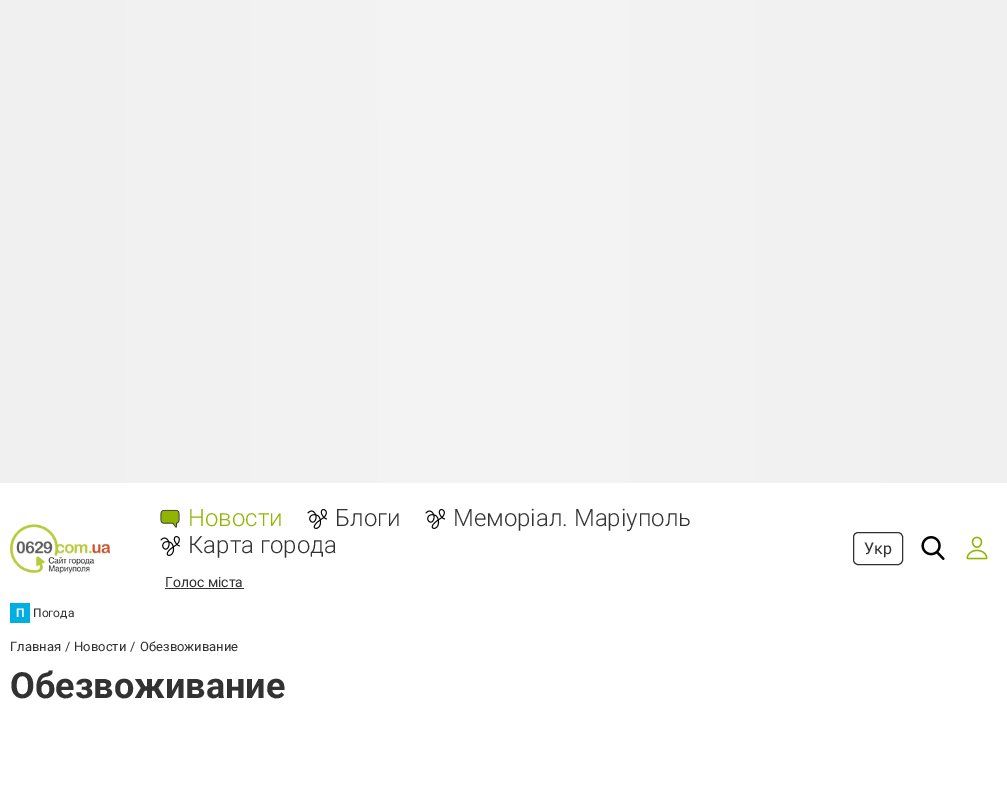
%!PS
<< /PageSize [1007 787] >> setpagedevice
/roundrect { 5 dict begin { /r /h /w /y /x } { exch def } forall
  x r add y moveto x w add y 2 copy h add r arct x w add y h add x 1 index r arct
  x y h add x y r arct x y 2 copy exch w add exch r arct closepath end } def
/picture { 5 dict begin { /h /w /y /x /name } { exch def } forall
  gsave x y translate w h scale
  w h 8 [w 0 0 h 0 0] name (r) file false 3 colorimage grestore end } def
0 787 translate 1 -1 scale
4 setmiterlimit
1 setgray
0 0 1007 787 rectfill
gsave newpath 0 0 moveto 1007 0 lineto 1007 483 lineto 0 483 lineto closepath clip newpath
<< /ShadingType 2 /ColorSpace /DeviceRGB /Coords [0 242 1007 241] /Extend [true true] /Function << /FunctionType 3 /Domain [0 1] /Functions [<< /FunctionType 2 /Domain [0 1] /C0 [0.941 0.941 0.941] /C1 [0.957 0.957 0.957] /N 1 >> << /FunctionType 2 /Domain [0 1] /C0 [0.957 0.957 0.957] /C1 [0.941 0.941 0.941] /N 1 >>] /Bounds [0.5] /Encode [0 1 0 1] >> >> shfill grestore
(img1.rgb) 10 524 100 50 picture
(img2.rgb) 160 509 20 19 picture
/Roboto-Light [24 0 0 -24 0 0] selectfont
0.565 0.706 0 setrgbcolor
188 526 moveto (Новости) show
(img3.rgb) 307 509 20 20 picture
0.196 setgray
335 526 moveto (Блоги) show
(img3.rgb) 425 509 20 20 picture
453 526 moveto (Меморіал. Маріуполь) show
(img3.rgb) 160 536 20 20 picture
188 553 moveto (Карта города) show
/Roboto-Regular [14 0 0 -14 0 0] selectfont
165 587 moveto (Голос міста) show
165 588 79 1 rectfill
853.5 532.5 49 32 4.5 roundrect stroke
/Roboto-Regular [16 0 0 -16 0 0] selectfont
864 554 moveto (Укр) show
(img4.rgb) 921 536 24 24 picture
(img5.rgb) 966 536 22 24 picture
0 0.686 0.882 setrgbcolor
10 603 20 20 rectfill
/Roboto-Bold [12 0 0 -12 0 0] selectfont
1 setgray
16 617 moveto (П) show
/Roboto-Regular [12 0 0 -12 0 0] selectfont
0.196 setgray
33 617 moveto (Погода) show
/Roboto-Regular [13 0 0 -13 0 0] selectfont
10 651 moveto (Главная) show
65 651 moveto (/) show
74 651 moveto (Новости) show
130 651 moveto (/) show
140 651 moveto (Обезвоживание) show
/Roboto-Bold [36 0 0 -36 0 0] selectfont
10 698 moveto (Обезвоживание) show
showpage
